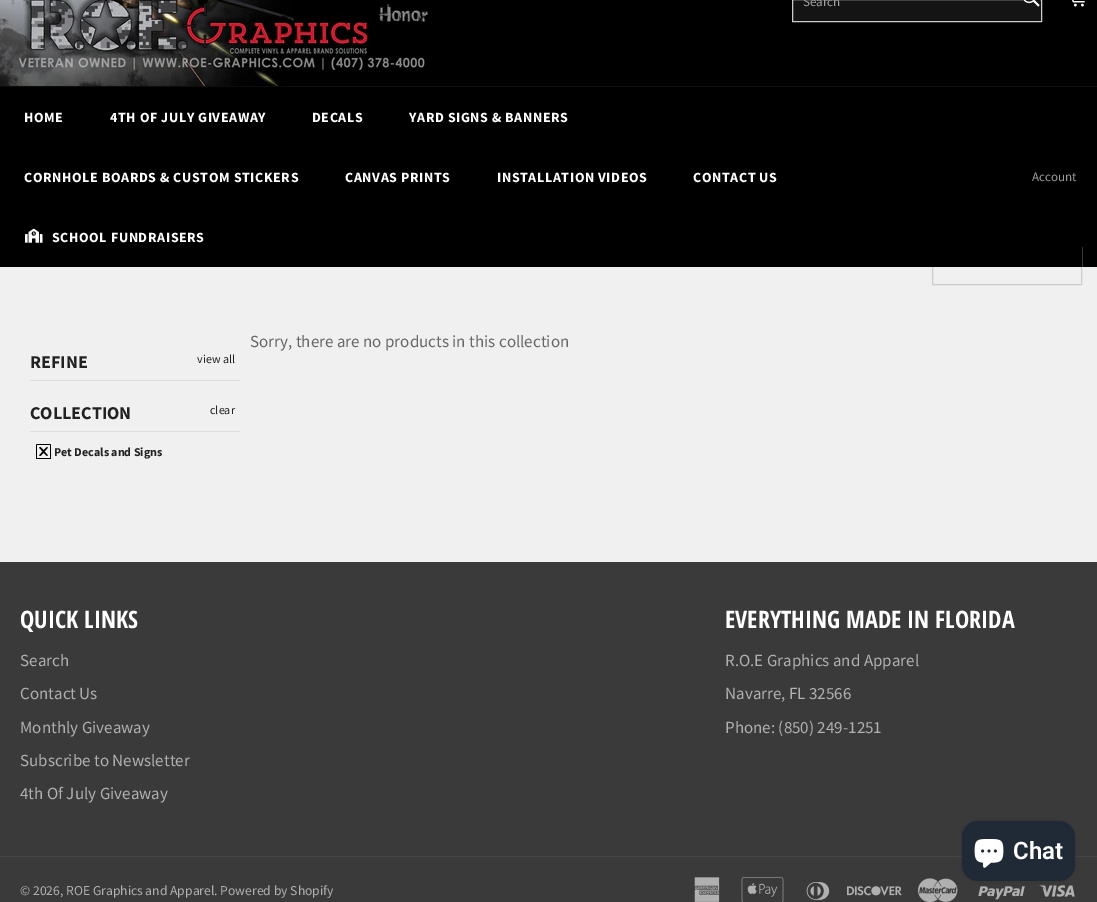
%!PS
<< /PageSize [1097 902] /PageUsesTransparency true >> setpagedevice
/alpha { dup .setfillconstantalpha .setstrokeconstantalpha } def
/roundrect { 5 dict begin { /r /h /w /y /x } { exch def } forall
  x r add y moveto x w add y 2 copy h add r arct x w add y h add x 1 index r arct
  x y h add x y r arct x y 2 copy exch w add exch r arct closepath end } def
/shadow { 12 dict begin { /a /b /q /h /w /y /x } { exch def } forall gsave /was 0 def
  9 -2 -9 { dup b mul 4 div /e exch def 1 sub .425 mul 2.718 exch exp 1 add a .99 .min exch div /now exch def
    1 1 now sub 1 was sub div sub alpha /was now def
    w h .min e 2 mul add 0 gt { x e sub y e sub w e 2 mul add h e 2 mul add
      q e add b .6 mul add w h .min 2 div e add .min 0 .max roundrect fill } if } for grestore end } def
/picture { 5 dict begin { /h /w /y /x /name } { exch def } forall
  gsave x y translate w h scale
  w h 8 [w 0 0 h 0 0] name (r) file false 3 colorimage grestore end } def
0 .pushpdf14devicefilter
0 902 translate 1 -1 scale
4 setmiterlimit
0 setgray
0 0 1097 902 rectfill
(img1.rgb) 0 0 428 86 picture
0.078 setgray
newpath 792.5 -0.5 moveto 1041.5 -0.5 lineto 1041.5 21.5 lineto 792.5 21.5 lineto closepath gsave fill grestore
0.8 setgray
stroke
/SourceSansPro-Regular [13 0 0 -13 0 0] selectfont
0.631 setgray
803 6 moveto (Search) show
(img2.rgb) 1023 0 17 7 picture
(img3.rgb) 1072 0 13 7 picture
0.941 setgray
0 267 1097 295 rectfill
0.8 setgray
932.5 247.5 149 37 rectstroke
0 setgray
932 247 150 20 rectfill
0.051 setgray
0 86 1097 1 rectfill
/SourceSansPro-Bold [14 0 0 -14 0 0] selectfont
1 setgray
24 122 moveto 0.6 0 (HOME) ashow
110 122 moveto 0.6 0 (4TH OF JULY GIVEAWAY) ashow
312 122 moveto 0.6 0 (DECALS) ashow
409 122 moveto 0.6 0 (YARD SIGNS & BANNERS) ashow
24 182 moveto 0.6 0 (CORNHOLE BOARDS & CUSTOM STICKERS) ashow
345 182 moveto 0.6 0 (CANVAS PRINTS) ashow
497 182 moveto 0.6 0 (INSTALLATION VIDEOS) ashow
693 182 moveto 0.6 0 (CONTACT US) ashow
(img4.rgb) 25 228 18 15 picture
52 242 moveto 0.6 0 (SCHOOL FUNDRAISERS) ashow
/SourceSansPro-Regular [13 0 0 -13 0 0] selectfont
0.6 setgray
1032 181 moveto (Account) show
/SourceSansPro-Regular [17 0 0 -17 0 0] selectfont
0.4 setgray
250 347 moveto (Sorry, there are no products in this collection) show
0.867 setgray
30 380 210 1 rectfill
/SourceSansPro-Bold [18 0 0 -18 0 0] selectfont
0.133 setgray
30 368 moveto (REFINE) show
/SourceSansPro-Regular [12 0 0 -12 0 0] selectfont
197 363 moveto (view all) show
0.867 setgray
30 431 210 1 rectfill
/SourceSansPro-Bold [18 0 0 -18 0 0] selectfont
0.133 setgray
30 419 moveto (COLLECTION) show
/SourceSansPro-Regular [12 0 0 -12 0 0] selectfont
210 414 moveto (clear) show
(img5.rgb) 36 444 16 15 picture
/SourceSansPro-Bold [12 0 0 -12 0 0] selectfont
54 456 moveto (Pet Decals and Signs) show
0.231 0.227 0.227 setrgbcolor
0 562 1097 340 rectfill
/OpenSansCondensed-Bold [24 0 0 -24 0 0] selectfont
1 setgray
20 628 moveto (QUICK LINKS) show
/SourceSansPro-Regular [17 0 0 -17 0 0] selectfont
0.694 0.69 0.69 setrgbcolor
20 666 moveto (Search) show
20 699 moveto (Contact Us) show
20 733 moveto (Monthly Giveaway) show
20 766 moveto (Subscribe to Newsletter) show
20 799 moveto (4th Of July Giveaway) show
/OpenSansCondensed-Bold [24 0 0 -24 0 0] selectfont
1 setgray
725 628 moveto (EVERYTHING MADE IN FLORIDA) show
/SourceSansPro-Regular [17 0 0 -17 0 0] selectfont
0.694 0.69 0.69 setrgbcolor
725 666 moveto (R.O.E Graphics and Apparel) show
725 699 moveto (Navarre, FL 32566) show
725 733 moveto (Phone: \(850\) 249-1251) show
0.282 0.278 0.278 setrgbcolor
0 856 1097 1 rectfill
/SourceSansPro-Regular [13.6 0 0 -13.6 0 0] selectfont
0.694 0.69 0.69 setrgbcolor
20 895 moveto (© 2026, ROE Graphics and Apparel. Powered by Shopify) show
(img6.rgb) 694 877 26 25 picture
(img7.rgb) 741 877 43 25 picture
(img8.rgb) 806 882 24 18 picture
(img9.rgb) 847 886 55 10 picture
(img10.rgb) 918 878 40 24 picture
(img11.rgb) 978 886 47 14 picture
(img12.rgb) 1039 885 36 12 picture
0 setgray
962 821 113 60 16 2.5 0.15 shadow
0.125 0.165 0.212 setrgbcolor
962 821 113 60 16 roundrect fill
(img13.rgb) 974 839 30 29 picture
/Roboto-SemiBold [24 0 0 -24 0 0] selectfont
1 setgray
1013 859 moveto (Chat) show
.poppdf14devicefilter showpage
